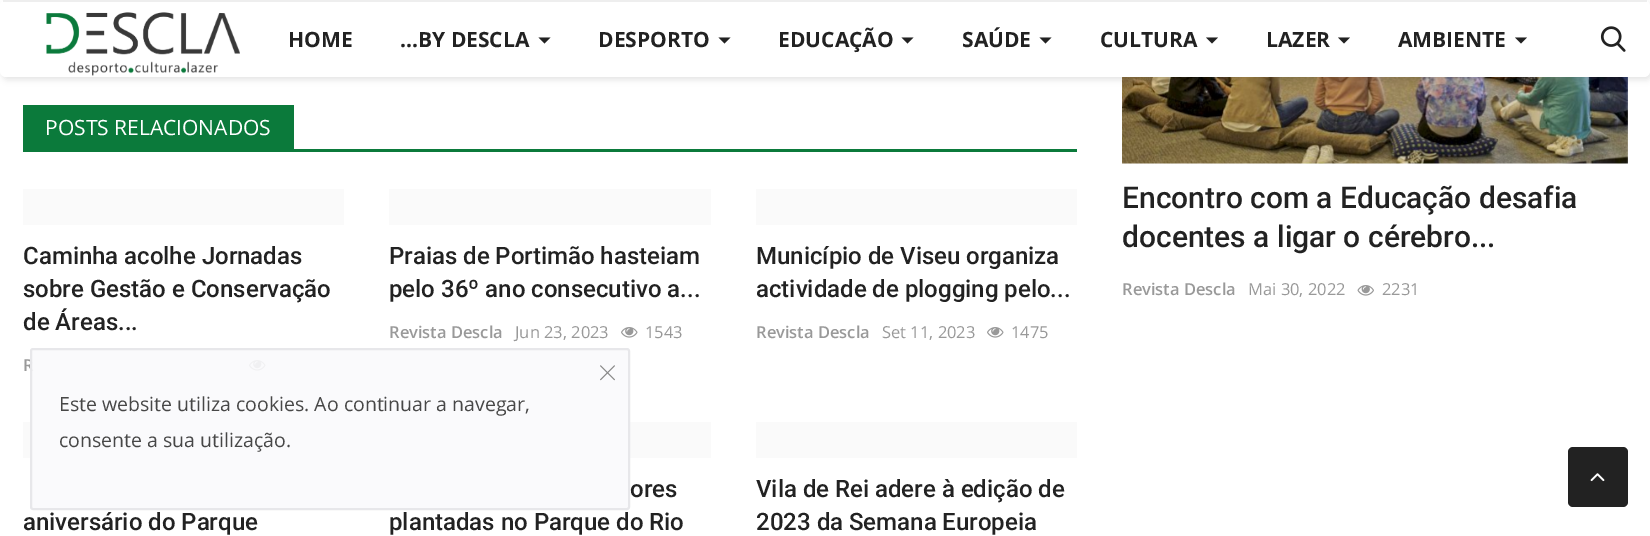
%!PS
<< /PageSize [1650 536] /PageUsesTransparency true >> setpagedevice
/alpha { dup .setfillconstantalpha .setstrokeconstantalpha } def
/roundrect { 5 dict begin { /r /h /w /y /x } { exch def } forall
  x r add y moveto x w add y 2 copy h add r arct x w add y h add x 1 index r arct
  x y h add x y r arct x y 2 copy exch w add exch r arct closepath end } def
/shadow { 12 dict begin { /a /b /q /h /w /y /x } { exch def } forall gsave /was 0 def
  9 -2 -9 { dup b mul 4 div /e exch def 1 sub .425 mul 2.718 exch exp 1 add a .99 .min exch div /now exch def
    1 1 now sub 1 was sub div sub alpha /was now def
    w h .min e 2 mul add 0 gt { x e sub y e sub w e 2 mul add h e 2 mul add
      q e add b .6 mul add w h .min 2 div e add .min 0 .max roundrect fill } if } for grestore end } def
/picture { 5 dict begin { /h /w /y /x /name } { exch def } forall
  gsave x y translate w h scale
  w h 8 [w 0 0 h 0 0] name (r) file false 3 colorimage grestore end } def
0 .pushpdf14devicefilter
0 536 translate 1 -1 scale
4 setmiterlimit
1 setgray
0 0 1650 536 rectfill
0.98 setgray
1122 77 506 87 rectfill
(img4.rgb) 1122 77 506 87 picture
0 setgray
2 3 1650 77 6 3 0.1 shadow
1 setgray
0 0 1650 77 6 roundrect fill
0.933 setgray
3 0 1644 2 rectfill
(img1.rgb) 46 12 194 64 picture
/OpenSans-Bold [21 0 0 -21 0 0] selectfont
0.133 setgray
288 47 moveto (HOME) show
400 47 moveto (...BY DESCLA) show
newpath 538.5 37.5 moveto 550.5 37.5 lineto 544.5 43.5 lineto closepath fill
598 47 moveto (DESPORTO) show
newpath 718.5 37.5 moveto 730.5 37.5 lineto 724.5 43.5 lineto closepath fill
778 47 moveto (EDUCAÇÃO) show
newpath 901.5 37.5 moveto 913.5 37.5 lineto 907.5 43.5 lineto closepath fill
962 47 moveto (SAÚDE) show
newpath 1039.5 37.5 moveto 1051.5 37.5 lineto 1045.5 43.5 lineto closepath fill
1100 47 moveto (CULTURA) show
newpath 1206 37.5 moveto 1218 37.5 lineto 1212 43.5 lineto closepath fill
1266 47 moveto (LAZER) show
newpath 1338 37.5 moveto 1350 37.5 lineto 1344 43.5 lineto closepath fill
1398 47 moveto (AMBIENTE) show
newpath 1515 37.5 moveto 1527 37.5 lineto 1521 43.5 lineto closepath fill
(img2.rgb) 1600 26 26 26 picture
0.043 0.478 0.231 setrgbcolor
23 149 1054 3 rectfill
23 105 271 44 rectfill
/OpenSans-Regular [21 0 0 -21 0 0] selectfont
1 setgray
45 135 moveto (POSTS RELACIONADOS) show
0.98 setgray
23 189 321 36 rectfill
/Roboto-Medium [24 0 0 -24 0 0] selectfont
0.133 setgray
23 264 moveto (Caminha acolhe Jornadas) show
23 297 moveto (sobre Gestão e Conservação) show
23 330 moveto (de Áreas...) show
/OpenSans-SemiBold [16.5 0 0 -16.5 0 0] selectfont
0.6 setgray
23 371 moveto (R) show
(img3.rgb) 249 360 17 11 picture
0.98 setgray
389 189 322 36 rectfill
/Roboto-Medium [24 0 0 -24 0 0] selectfont
0.133 setgray
389 264 moveto (Praias de Portimão hasteiam) show
389 297 moveto (pelo 36º ano consecutivo a...) show
/OpenSans-SemiBold [16.5 0 0 -16.5 0 0] selectfont
0.6 setgray
389 338 moveto (Revista Descla) show
/OpenSans-Regular [16.5 0 0 -16.5 0 0] selectfont
515 338 moveto (Jun 23, 2023) show
(img3.rgb) 621 327 17 11 picture
645 338 moveto (1543) show
0.98 setgray
756 189 321 36 rectfill
/Roboto-Medium [24 0 0 -24 0 0] selectfont
0.133 setgray
756 264 moveto (Município de Viseu organiza) show
756 297 moveto (actividade de plogging pelo...) show
/OpenSans-SemiBold [16.5 0 0 -16.5 0 0] selectfont
0.6 setgray
756 338 moveto (Revista Descla) show
/OpenSans-Regular [16.5 0 0 -16.5 0 0] selectfont
882 338 moveto (Set 11, 2023) show
(img3.rgb) 987 327 17 11 picture
1011 338 moveto (1475) show
0.98 setgray
23 422 321 36 rectfill
/Roboto-Medium [24 0 0 -24 0 0] selectfont
0.133 setgray
23 530 moveto (aniversário do Parque) show
0.98 setgray
389 422 322 36 rectfill
0.133 setgray
630 497 moveto (ores) show
389 530 moveto (plantadas no Parque do Rio) show
0.98 setgray
756 422 321 36 rectfill
0.133 setgray
756 497 moveto (Vila de Rei adere à edição de) show
756 530 moveto (2023 da Semana Europeia) show
/Roboto-Medium [30 0 0 -30 0 0] selectfont
1122 208 moveto (Encontro com a Educação desafia) show
1122 247 moveto (docentes a ligar o cérebro...) show
/OpenSans-SemiBold [16.5 0 0 -16.5 0 0] selectfont
0.6 setgray
1122 295 moveto (Revista Descla) show
/OpenSans-Regular [16.5 0 0 -16.5 0 0] selectfont
1248 295 moveto (Mai 30, 2022) show
(img5.rgb) 1357 285 17 11 picture
1382 295 moveto (2231) show
0.9 alpha
0.98 0.98 0.988 setrgbcolor
30 348 600 162 3 roundrect fill
0.898 0.898 0.91 setrgbcolor
2 setlinewidth
31 349 598 160 2 roundrect stroke
1 alpha
(img6.rgb) 600 365 15 16 picture
/OpenSans-Regular [19.5 0 0 -19.5 0 0] selectfont
0.278 setgray
59 411 moveto (Este website utiliza cookies. Ao continuar a navegar,) show
59 447 moveto (consente a sua utilização.) show
0.133 setgray
1568 447 60 60 5 roundrect fill
(img7.rgb) 1590 473 15 9 picture
.poppdf14devicefilter showpage
